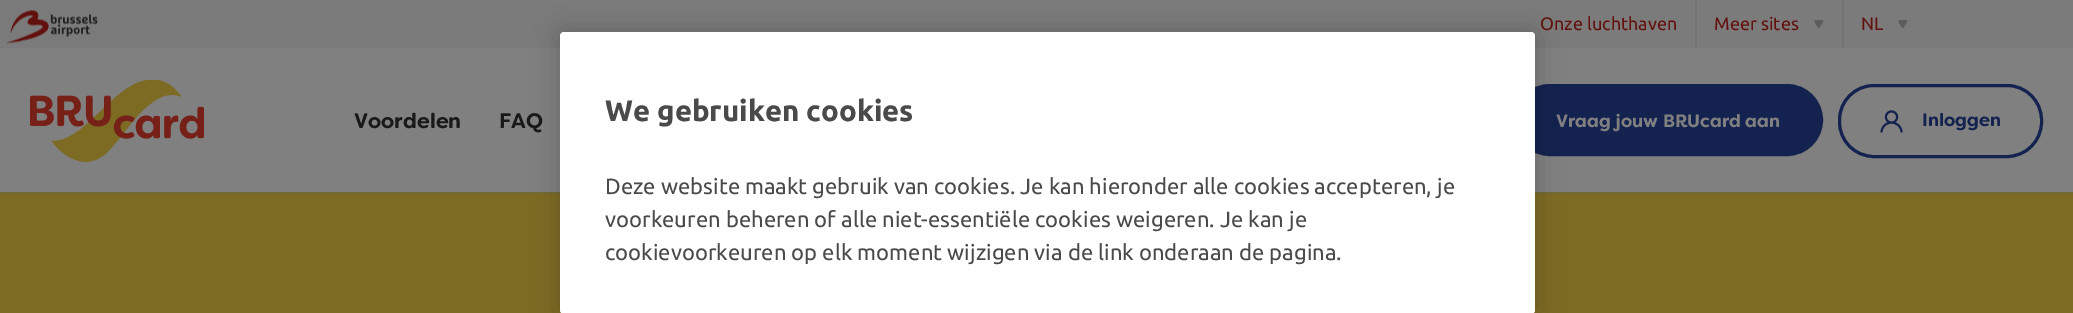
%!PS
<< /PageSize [2073 313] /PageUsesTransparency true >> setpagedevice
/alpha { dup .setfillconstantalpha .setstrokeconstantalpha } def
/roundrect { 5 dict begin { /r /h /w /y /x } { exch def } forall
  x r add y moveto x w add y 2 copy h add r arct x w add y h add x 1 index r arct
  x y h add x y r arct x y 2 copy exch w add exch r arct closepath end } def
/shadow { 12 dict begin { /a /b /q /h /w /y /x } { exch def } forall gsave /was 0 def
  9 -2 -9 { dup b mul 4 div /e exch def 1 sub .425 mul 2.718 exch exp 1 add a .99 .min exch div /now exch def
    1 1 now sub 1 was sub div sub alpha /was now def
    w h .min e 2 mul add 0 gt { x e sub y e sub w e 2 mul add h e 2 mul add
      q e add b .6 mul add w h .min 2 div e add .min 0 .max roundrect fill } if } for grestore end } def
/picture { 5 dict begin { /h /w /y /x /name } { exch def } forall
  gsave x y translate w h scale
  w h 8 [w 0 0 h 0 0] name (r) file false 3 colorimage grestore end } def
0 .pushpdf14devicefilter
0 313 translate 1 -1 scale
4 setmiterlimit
0.502 setgray
0 0 2073 313 rectfill
0.482 setgray
0 0 2073 48 rectfill
(img1.rgb) 6 10 92 34 picture
/Ubuntu-Regular [18 0 0 -18 0 0] selectfont
0.384 0.067 0.055 setrgbcolor
1540 30 moveto (Onze luchthaven) show
0.451 setgray
1695 0 2 48 rectfill
0.384 0.067 0.055 setrgbcolor
1714 30 moveto (Meer sites) show
(img2.rgb) 1814 20 10 8 picture
0.451 setgray
1842 0 2 48 rectfill
0.384 0.067 0.055 setrgbcolor
1861 30 moveto (NL) show
(img2.rgb) 1898 20 10 8 picture
0.451 0.416 0.2 setrgbcolor
0 192 2073 2 rectfill
(img3.rgb) 30 80 174 82 picture
/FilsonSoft-Bold [21 0 0 -21 0 0] selectfont
0.098 setgray
354 128 moveto (Voordelen) show
499 128 moveto (FAQ) show
0.075 0.133 0.31 setrgbcolor
1515.5 85.5 306 69 34.5 roundrect gsave fill grestore
3 setlinewidth
stroke
/FilsonSoft-Bold [18 0 0 -18 0 0] selectfont
0.502 setgray
1556 127 moveto (Vraag jouw BRUcard aan) show
0.075 0.133 0.31 setrgbcolor
1839.5 85.5 202 71 34.5 roundrect stroke
(img4.rgb) 1880 110 23 23 picture
1922 126 moveto (Inloggen) show
0.49 0.42 0.141 setrgbcolor
0 194 2073 119 rectfill
0 setgray
560 32 975 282 4 13.5 0.2 shadow
1 setgray
560 32 975 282 4 roundrect fill
/Ubuntu-Bold [29.4 0 0 -29.4 0 0] selectfont
0.29 setgray
605 121 moveto (We gebruiken cookies) show
/Ubuntu-Regular [22.05 0 0 -22.05 0 0] selectfont
605 194 moveto (Deze website maakt gebruik van cookies. Je kan hieronder alle cookies accepteren, je) show
605 227 moveto (voorkeuren beheren of alle niet-essentiële cookies weigeren. Je kan je) show
605 260 moveto (cookievoorkeuren op elk moment wijzigen via de link onderaan de pagina.) show
.poppdf14devicefilter showpage
